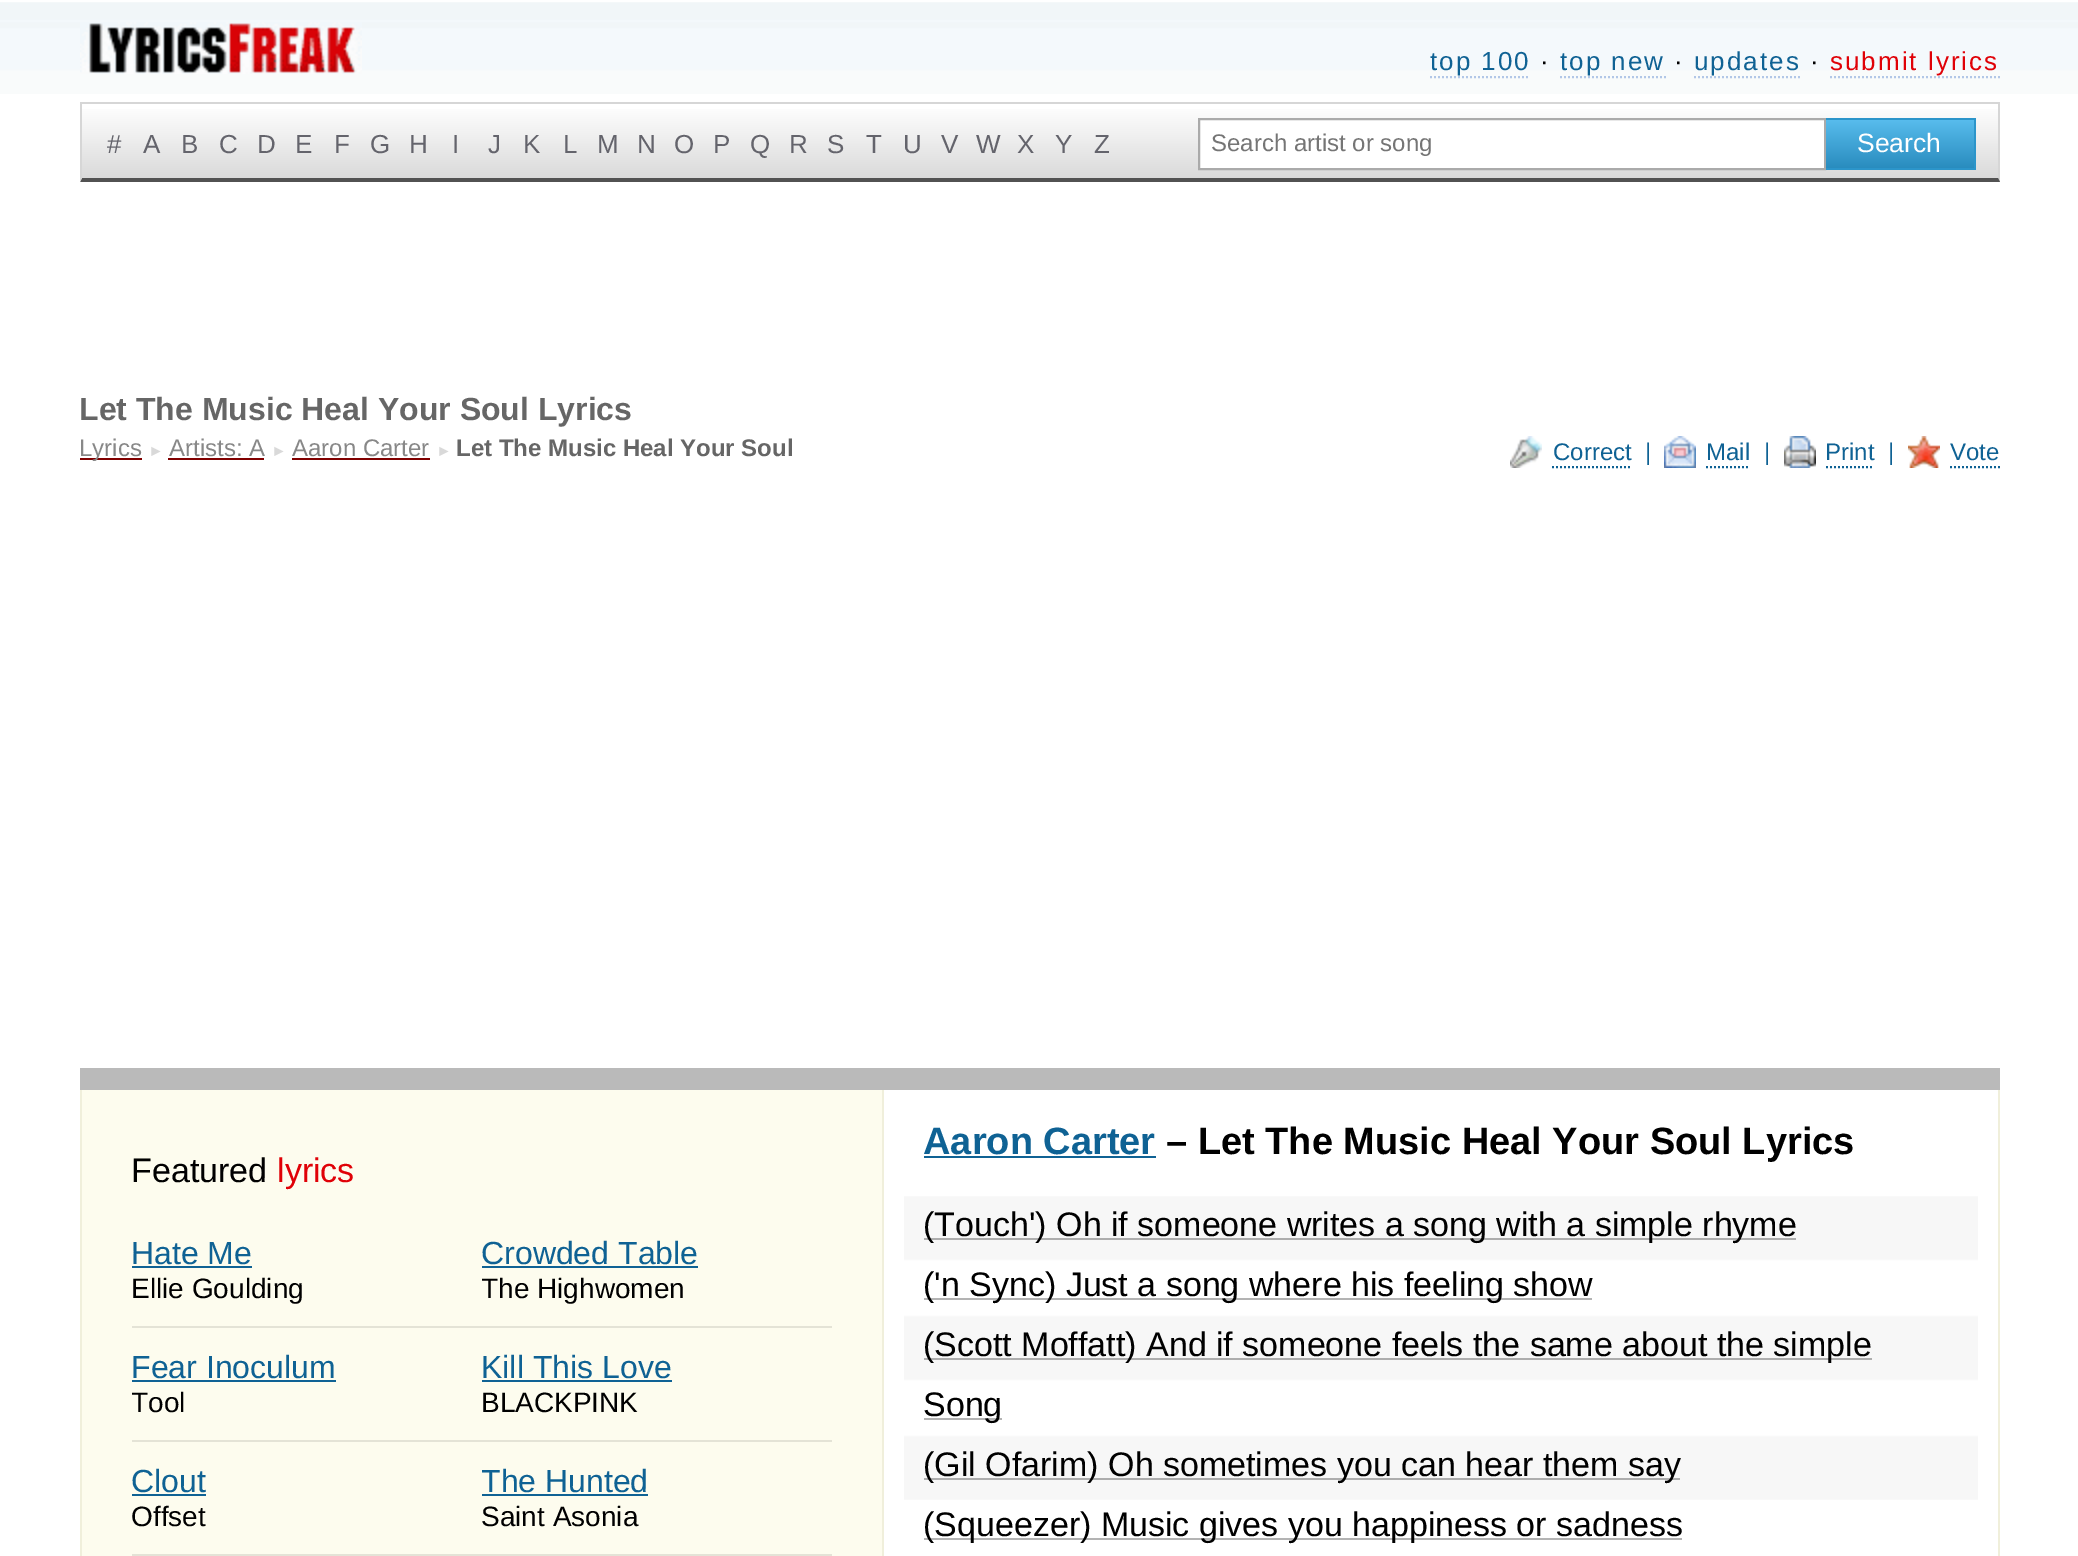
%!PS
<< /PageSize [2078 1556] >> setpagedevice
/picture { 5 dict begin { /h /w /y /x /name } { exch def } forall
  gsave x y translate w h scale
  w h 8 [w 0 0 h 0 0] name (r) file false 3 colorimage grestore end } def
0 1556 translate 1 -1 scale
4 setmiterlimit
1 setgray
0 0 2078 1556 rectfill
(img1.rgb) 0 2 2078 92 picture
(img2.rgb) 80 22 282 52 picture
/LiberationSans-Regular [26 0 0 -26 0 0] selectfont
0.059 0.384 0.58 setrgbcolor
1430 70 moveto 2 0 (top 100) ashow
0.698 0.78 0.906 setrgbcolor
2 setlinewidth
[2 2] 0 setdash
newpath 1430 77 moveto 1530 77 lineto stroke
0 setgray
1540 70 moveto 2 0 (·) ashow
0.059 0.384 0.58 setrgbcolor
1560 70 moveto 2 0 (top new) ashow
0.698 0.78 0.906 setrgbcolor
newpath 1560 77 moveto 1666 77 lineto stroke
0 setgray
1674 70 moveto 2 0 (·) ashow
0.059 0.384 0.58 setrgbcolor
1694 70 moveto 2 0 (updates) ashow
0.698 0.78 0.906 setrgbcolor
newpath 1694 77 moveto 1800 77 lineto stroke
0 setgray
1810 70 moveto 2 0 (·) ashow
0.878 0.004 0.027 setrgbcolor
1830 70 moveto 2 0 (submit lyrics) ashow
0.698 0.78 0.906 setrgbcolor
newpath 1830 77 moveto 2000 77 lineto stroke
gsave newpath 82 109 moveto 1998 109 lineto 1998 178 lineto 82 178 lineto closepath clip newpath
<< /ShadingType 2 /ColorSpace /DeviceRGB /Coords [1040 104 1040 178] /Extend [true true] /Function << /FunctionType 2 /Domain [0 1] /C0 [1 1 1] /C1 [0.855 0.855 0.855] /N 1 >> >> shfill grestore
0.839 setgray
80 102 1920 2 rectfill
newpath 2000 102 moveto 2000 182 lineto 1998 178 lineto 1998 104 lineto closepath fill
0.322 setgray
newpath 2000 182 moveto 80 182 lineto 82 178 lineto 1998 178 lineto closepath fill
0.839 setgray
newpath 80 182 moveto 80 102 lineto 82 104 lineto 82 178 lineto closepath fill
0.392 0.392 0.424 setrgbcolor
107 153 moveto (#) show
143 153 moveto (A) show
181 153 moveto (B) show
219 153 moveto (C) show
257 153 moveto (D) show
295 153 moveto (E) show
334 153 moveto (F) show
370 153 moveto (G) show
409 153 moveto (H) show
452 153 moveto (I) show
488 153 moveto (J) show
523 153 moveto (K) show
563 153 moveto (L) show
597 153 moveto (M) show
637 153 moveto (N) show
674 153 moveto (O) show
713 153 moveto (P) show
750 153 moveto (Q) show
789 153 moveto (R) show
827 153 moveto (S) show
866 153 moveto (T) show
903 153 moveto (U) show
941 153 moveto (V) show
976 153 moveto (W) show
1017 153 moveto (X) show
1055 153 moveto (Y) show
1094 153 moveto (Z) show
1 setgray
newpath 1199 119 moveto 1825 119 lineto 1825 169 lineto 1199 169 lineto closepath gsave fill grestore
0.667 setgray
[] 0 setdash
stroke
/LiberationSans-Regular [24 0 0 -24 0 0] selectfont
0.459 setgray
1211 151 moveto (Search artist or song) show
gsave newpath 1826 120 moveto 1974 120 lineto 1974 168 lineto 1826 168 lineto closepath clip newpath
<< /ShadingType 2 /ColorSpace /DeviceRGB /Coords [1900 120 1900 168] /Extend [true true] /Function << /FunctionType 2 /Domain [0 1] /C0 [0.345 0.737 0.929] /C1 [0.161 0.549 0.745] /N 1 >> >> shfill grestore
0.173 0.584 0.792 setrgbcolor
1826 118 150 2 rectfill
1974 118 2 52 rectfill
1826 168 150 2 rectfill
/LiberationSans-Regular [26.5 0 0 -26.5 0 0] selectfont
1 setgray
1857 152 moveto (Search) show
/LiberationSans-Bold [32 0 0 -32 0 0] selectfont
0.4 setgray
79 420 moveto (Let The Music Heal Your Soul Lyrics) show
0.502 0 0 setrgbcolor
80 458 62 2 rectfill
/LiberationSans-Regular [24 0 0 -24 0 0] selectfont
0.533 setgray
79 456 moveto (Lyrics) show
/LiberationSans-Regular [16 0 0 -16 0 0] selectfont
0.851 setgray
148 456 moveto (►) show
/LiberationSans-Regular [24 0 0 -24 0 0] selectfont
0.533 setgray
169 456 moveto (Artists: A) show
0.502 0 0 setrgbcolor
168 458 96 2 rectfill
/LiberationSans-Regular [16 0 0 -16 0 0] selectfont
0.851 setgray
271 456 moveto (►) show
/LiberationSans-Regular [24 0 0 -24 0 0] selectfont
0.533 setgray
292 456 moveto (Aaron Carter) show
0.502 0 0 setrgbcolor
292 458 138 2 rectfill
/LiberationSans-Regular [16 0 0 -16 0 0] selectfont
0.851 setgray
436 456 moveto (►) show
/LiberationSans-Bold [24 0 0 -24 0 0] selectfont
0.4 setgray
456 456 moveto (Let The Music Heal Your Soul) show
(img3.rgb) 1510 436 32 32 picture
/LiberationSans-Regular [24 0 0 -24 0 0] selectfont
0.059 0.384 0.58 setrgbcolor
1553 460 moveto (Correct) show
[2 2] 0 setdash
newpath 1552 467 moveto 1632 467 lineto stroke
1645 460 moveto (|) show
(img4.rgb) 1664 436 32 32 picture
1706 460 moveto (Mail) show
newpath 1706 467 moveto 1750 467 lineto stroke
1764 460 moveto (|) show
(img5.rgb) 1784 436 32 32 picture
1825 460 moveto (Print) show
newpath 1826 467 moveto 1874 467 lineto stroke
1888 460 moveto (|) show
(img6.rgb) 1908 436 32 32 picture
1950 460 moveto (Vote) show
newpath 1950 467 moveto 2000 467 lineto stroke
0.729 setgray
80 1068 1920 22 rectfill
0.941 0.937 0.859 setrgbcolor
1998 1090 2 466 rectfill
80 1090 2 466 rectfill
0.992 0.988 0.933 setrgbcolor
82 1090 800 466 rectfill
0.941 0.937 0.859 setrgbcolor
882 1090 2 466 rectfill
/LiberationSans-Regular [34 0 0 -34 0 0] selectfont
0 setgray
131 1182 moveto (Featured) show
0.878 0.004 0.027 setrgbcolor
277 1182 moveto (lyrics) show
0.894 0.89 0.839 setrgbcolor
132 1326 700 2 rectfill
/LiberationSans-Regular [32 0 0 -32 0 0] selectfont
0.059 0.384 0.58 setrgbcolor
131 1264 moveto (Hate Me) show
132 1266 120 2 rectfill
/LiberationSans-Regular [28 0 0 -28 0 0] selectfont
0 setgray
131 1298 moveto (Ellie Goulding) show
/LiberationSans-Regular [32 0 0 -32 0 0] selectfont
0.059 0.384 0.58 setrgbcolor
481 1264 moveto (Crowded Table) show
482 1266 216 2 rectfill
gsave
482 1272 328 32 rectclip
/LiberationSans-Regular [28 0 0 -28 0 0] selectfont
0 setgray
481 1298 moveto (The Highwomen) show
grestore
0.894 0.89 0.839 setrgbcolor
132 1440 700 2 rectfill
0.059 0.384 0.58 setrgbcolor
131 1378 moveto (Fear Inoculum) show
132 1380 204 2 rectfill
gsave
132 1386 328 32 rectclip
/LiberationSans-Regular [28 0 0 -28 0 0] selectfont
0 setgray
131 1412 moveto (Tool) show
grestore
481 1378 moveto (Kill This Love) show
482 1380 190 2 rectfill
/LiberationSans-Regular [28 0 0 -28 0 0] selectfont
0 setgray
481 1412 moveto (BLACKPINK) show
0.894 0.89 0.839 setrgbcolor
132 1554 700 2 rectfill
/LiberationSans-Regular [32 0 0 -32 0 0] selectfont
0.059 0.384 0.58 setrgbcolor
131 1492 moveto (Clout) show
132 1494 74 2 rectfill
/LiberationSans-Regular [28 0 0 -28 0 0] selectfont
0 setgray
131 1526 moveto (Offset) show
gsave
482 1464 328 36 rectclip
/LiberationSans-Regular [32 0 0 -32 0 0] selectfont
0.059 0.384 0.58 setrgbcolor
481 1492 moveto (The Hunted) show
grestore
0.059 0.384 0.58 setrgbcolor
482 1494 166 2 rectfill
0 setgray
481 1526 moveto (Saint Asonia) show
/LiberationSans-Bold [38 0 0 -38 0 0] selectfont
0.059 0.384 0.58 setrgbcolor
923 1154 moveto (Aaron Carter) show
924 1156 232 2 rectfill
0 setgray
1166 1154 moveto (– Let The Music Heal Your Soul Lyrics) show
(img7.rgb) 904 1196 1074 304 picture
0.678 setgray
924 1238 872 2 rectfill
/LiberationSans-Regular [34 0 0 -34 0 0] selectfont
0 setgray
923 1236 moveto (\(Touch'\) Oh if someone writes a song with a simple rhyme) show
0.702 setgray
924 1298 668 2 rectfill
0 setgray
923 1296 moveto (\('n Sync\) Just a song where his feeling show) show
0.678 setgray
924 1358 948 2 rectfill
0 setgray
923 1356 moveto (\(Scott Moffatt\) And if someone feels the same about the simple) show
0.702 setgray
924 1418 78 2 rectfill
0 setgray
923 1416 moveto (Song) show
0.678 setgray
924 1478 756 2 rectfill
0 setgray
923 1476 moveto (\(Gil Ofarim\) Oh sometimes you can hear them say) show
0.702 setgray
924 1538 758 2 rectfill
0 setgray
923 1536 moveto (\(Squeezer\) Music gives you happiness or sadness) show
showpage
